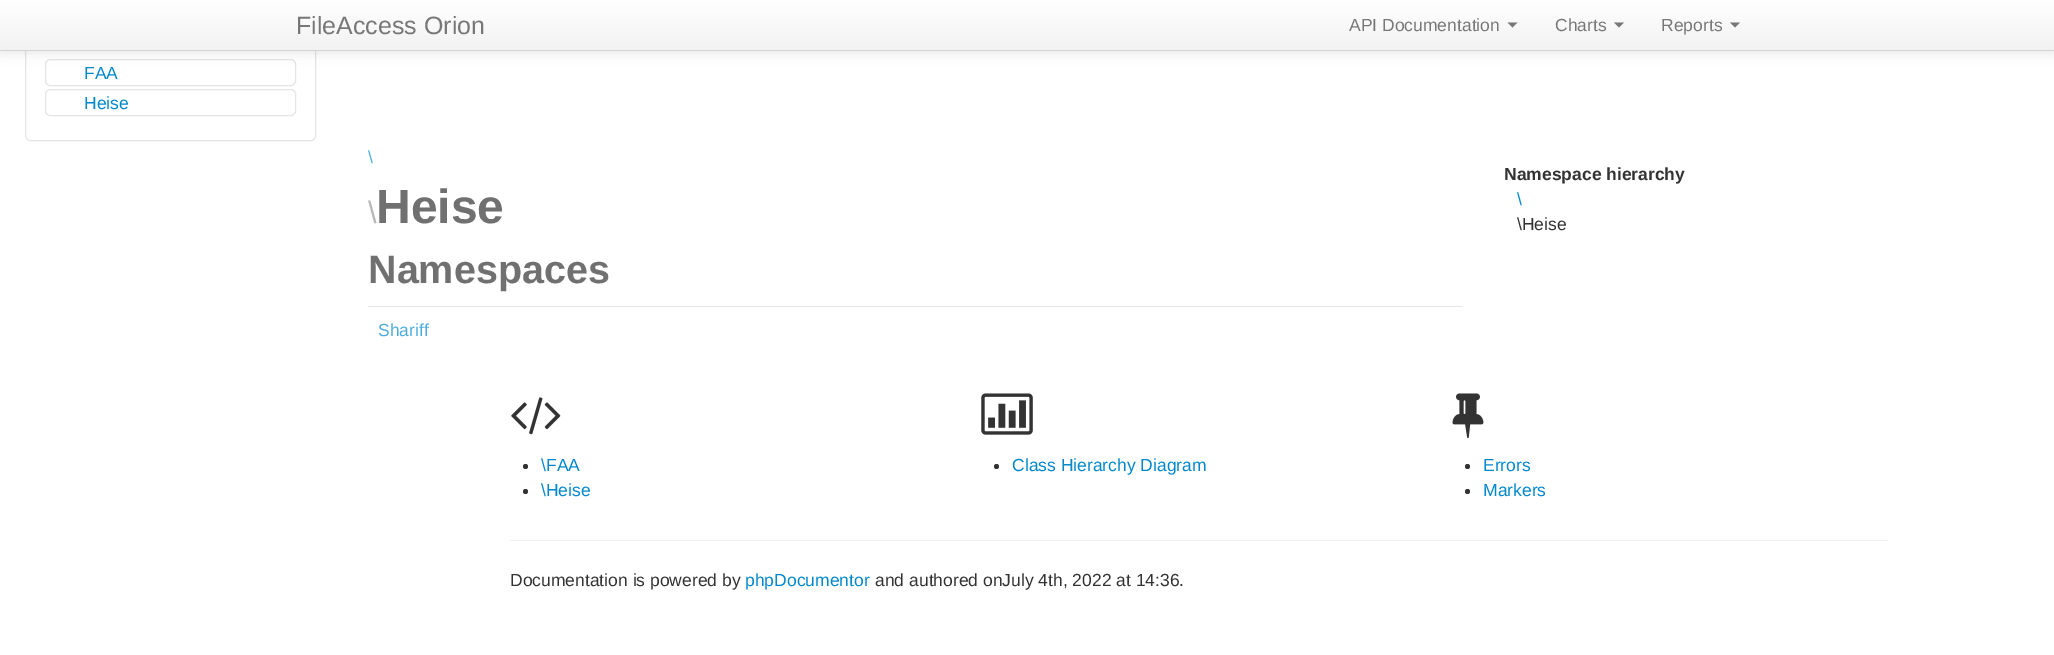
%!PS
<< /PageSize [2054 655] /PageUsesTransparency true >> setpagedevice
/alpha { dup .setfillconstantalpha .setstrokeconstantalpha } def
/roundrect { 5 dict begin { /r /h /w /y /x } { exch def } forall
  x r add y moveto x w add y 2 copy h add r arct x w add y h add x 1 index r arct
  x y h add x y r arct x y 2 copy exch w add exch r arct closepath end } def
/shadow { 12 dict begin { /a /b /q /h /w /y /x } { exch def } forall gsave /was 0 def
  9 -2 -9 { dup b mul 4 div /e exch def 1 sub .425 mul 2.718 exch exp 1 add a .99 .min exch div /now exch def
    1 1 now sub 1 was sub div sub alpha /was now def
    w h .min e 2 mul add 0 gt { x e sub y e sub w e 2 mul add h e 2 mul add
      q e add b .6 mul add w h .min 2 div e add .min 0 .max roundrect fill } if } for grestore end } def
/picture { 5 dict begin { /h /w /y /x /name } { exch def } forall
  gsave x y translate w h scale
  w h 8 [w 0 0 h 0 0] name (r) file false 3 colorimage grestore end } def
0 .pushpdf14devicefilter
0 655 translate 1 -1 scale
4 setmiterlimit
1 setgray
0 0 2054 655 rectfill
0.898 setgray
25.5 0.5 290 140 4.5 roundrect stroke
45.5 59.5 250 26 4.5 roundrect stroke
0 setgray
0 1 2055 52 0 6 0.1 shadow
gsave newpath 0 0 moveto 2054 0 lineto 2054 50 lineto 0 50 lineto closepath clip newpath
<< /ShadingType 2 /ColorSpace /DeviceRGB /Coords [1028 0 1028 50] /Extend [true true] /Function << /FunctionType 2 /Domain [0 1] /C0 [1 1 1] /C1 [0.949 0.949 0.949] /N 1 >> >> shfill grestore
0.831 setgray
0 50 2054 1 rectfill
/LiberationSans-Regular [25 0 0 -25 0 0] selectfont
0.467 setgray
296 34 moveto (FileAccess Orion) show
/LiberationSans-Regular [17.5 0 0 -17.5 0 0] selectfont
1349 31 moveto (API Documentation) show
newpath 1507.5 22.5 moveto 1517.5 22.5 lineto 1512.5 27.5 lineto closepath fill
1555 31 moveto (Charts) show
newpath 1614 22.5 moveto 1624 22.5 lineto 1619 27.5 lineto closepath fill
1661 31 moveto (Reports) show
newpath 1730 22.5 moveto 1740 22.5 lineto 1735 27.5 lineto closepath fill
0 0.533 0.8 setrgbcolor
84 79 moveto (FAA) show
0.898 setgray
45.5 89.5 250 26 4.5 roundrect stroke
0 0.533 0.8 setrgbcolor
84 109 moveto (Heise) show
0.302 0.675 0.859 setrgbcolor
368 163 moveto (\\) show
/LiberationSans-Regular [31 0 0 -31 0 0] selectfont
0.722 setgray
368 223 moveto (\\) show
/LiberationSans-Bold [48 0 0 -48 0 0] selectfont
0.439 setgray
376 223 moveto (Heise) show
/LiberationSans-Bold [39.5 0 0 -39.5 0 0] selectfont
368 283 moveto (Namespaces) show
0.906 setgray
368 306 1095 1 rectfill
/LiberationSans-Regular [17.5 0 0 -17.5 0 0] selectfont
0.302 0.675 0.859 setrgbcolor
378 336 moveto (Shariff) show
/LiberationSans-Bold [17.5 0 0 -17.5 0 0] selectfont
0.2 setgray
1504 180 moveto (Namespace hierarchy) show
/LiberationSans-Regular [17.5 0 0 -17.5 0 0] selectfont
0 0.533 0.8 setrgbcolor
1517 205 moveto (\\) show
0.2 setgray
1517 230 moveto (\\Heise) show
(img1.rgb) 511 397 50 38 picture
newpath 525.5 466.5 2.5 0 360 arc closepath fill
0 0.533 0.8 setrgbcolor
541 471 moveto (\\FAA) show
0.2 setgray
newpath 525.5 491.5 2.5 0 360 arc closepath fill
0 0.533 0.8 setrgbcolor
541 496 moveto (\\Heise) show
(img2.rgb) 981 393 52 42 picture
0.2 setgray
newpath 996.5 466.5 2.5 0 360 arc closepath fill
0 0.533 0.8 setrgbcolor
1012 471 moveto (Class Hierarchy Diagram) show
(img3.rgb) 1452 393 32 46 picture
0.2 setgray
newpath 1467.5 466.5 2.5 0 360 arc closepath fill
0 0.533 0.8 setrgbcolor
1483 471 moveto (Errors) show
0.2 setgray
newpath 1467.5 491.5 2.5 0 360 arc closepath fill
0 0.533 0.8 setrgbcolor
1483 496 moveto (Markers) show
0.933 setgray
510 540 1378 1 rectfill
0.2 setgray
510 586 moveto (Documentation is powered by) show
0 0.533 0.8 setrgbcolor
745 586 moveto (phpDocumentor) show
0.2 setgray
875 586 moveto (and authored onJuly 4th, 2022 at 14:36.) show
.poppdf14devicefilter showpage
